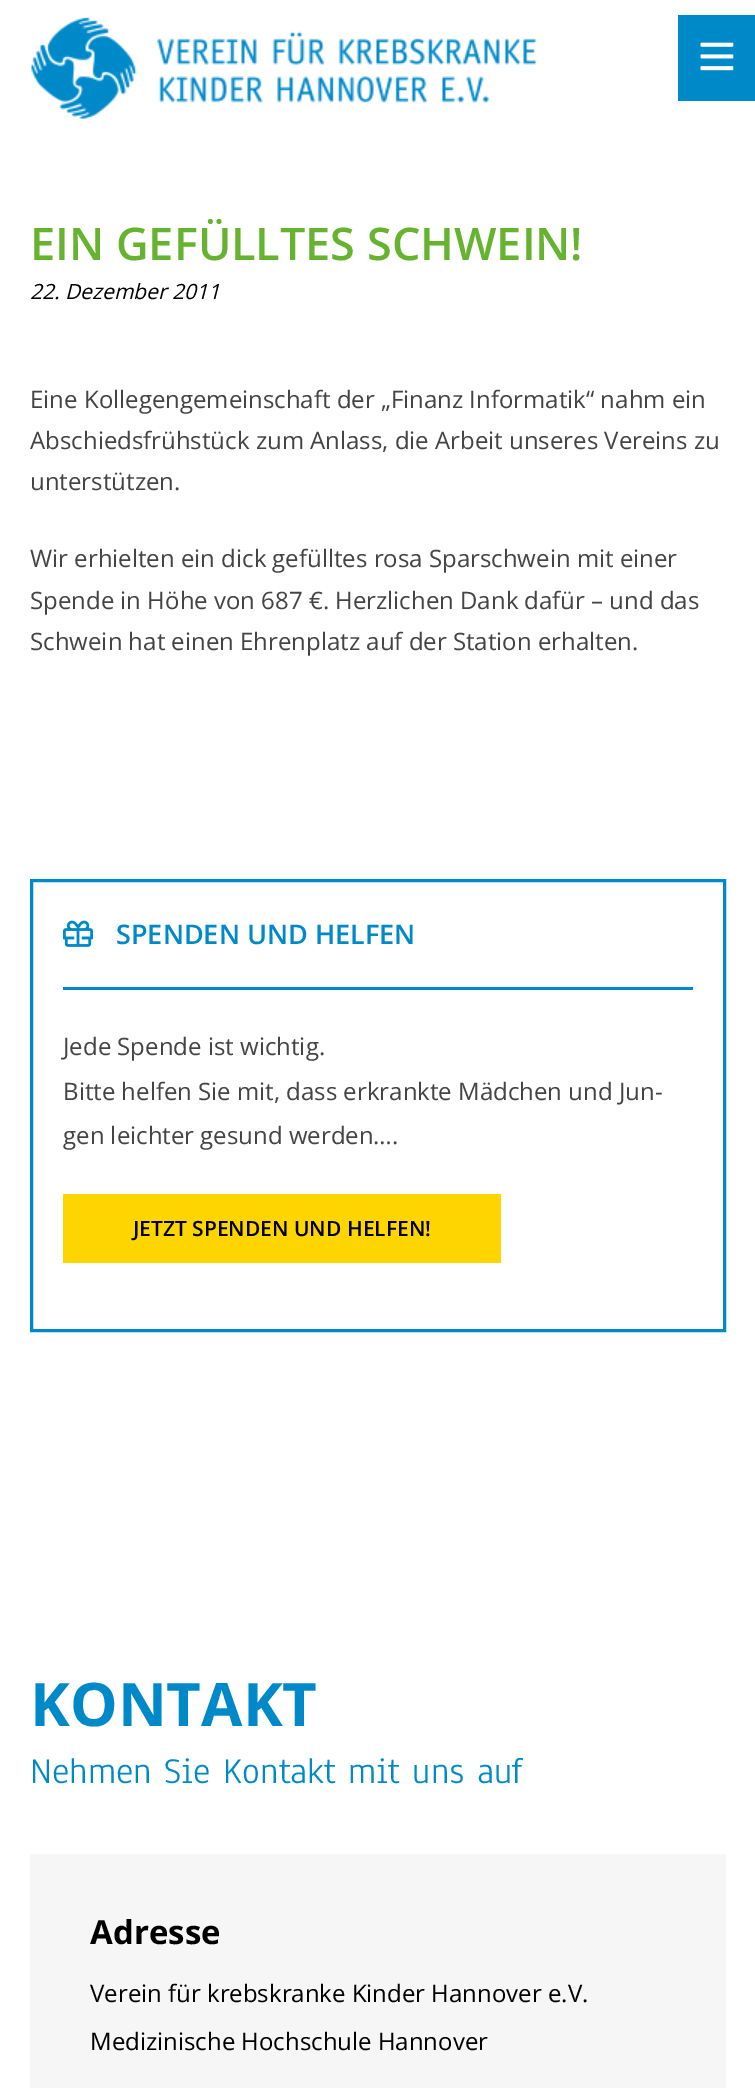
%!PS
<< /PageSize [755 2088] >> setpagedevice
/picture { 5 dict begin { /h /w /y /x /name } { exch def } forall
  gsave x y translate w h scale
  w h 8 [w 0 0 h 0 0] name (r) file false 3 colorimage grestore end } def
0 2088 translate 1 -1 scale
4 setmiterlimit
1 setgray
0 0 755 2088 rectfill
(img1.rgb) 31 17 505 102 picture
0 0.537 0.784 setrgbcolor
678 15 77 86 rectfill
(img2.rgb) 700 42 34 29 picture
/OpenSans-SemiBold [45 0 0 -45 0 0] selectfont
0.396 0.702 0.18 setrgbcolor
30 260 moveto (EIN GEFÜLLTES SCHWEIN!) show
/OpenSans-Italic [21 0 0 -21 0 0] selectfont
0 setgray
30 299 moveto (22. Dezember 2011) show
/OpenSans-Regular [24 0 0 -24 0 0] selectfont
0.267 setgray
30 408 moveto (Eine Kollegengemeinschaft der „Finanz Informatik“ nahm ein) show
30 449 moveto (Abschiedsfrühstück zum Anlass, die Arbeit unseres Vereins zu) show
30 490 moveto (unterstützen.) show
30 567 moveto (Wir erhielten ein dick gefülltes rosa Sparschwein mit einer) show
30 609 moveto (Spende in Höhe von 687 €. Herzlichen Dank dafür – und das) show
30 650 moveto (Schwein hat einen Ehrenplatz auf der Station erhalten.) show
0 0.537 0.784 setrgbcolor
3 setlinewidth
31.5 880.5 693 450 rectstroke
63 987 630 3 rectfill
(img3.rgb) 63 920 30 27 picture
/OpenSans-SemiBold [27 0 0 -27 0 0] selectfont
116 944 moveto (SPENDEN UND HELFEN) show
/OpenSans-Regular [24 0 0 -24 0 0] selectfont
0.267 setgray
63 1055 moveto (Jede Spende ist wichtig.) show
63 1100 moveto (Bitte helfen Sie mit, dass erkrankte Mädchen und Jun-) show
63 1144 moveto (gen leichter gesund werden….) show
1 0.835 0 setrgbcolor
63 1194 438 69 rectfill
/OpenSans-SemiBold [21 0 0 -21 0 0] selectfont
0 setgray
133 1236 moveto (JETZT SPENDEN UND HELFEN!) show
/OpenSans-Bold [60 0 0 -60 0 0] selectfont
0 0.537 0.784 setrgbcolor
30 1726 moveto (KONTAKT) show
/Anaheim-Regular [37.5 0 0 -37.5 0 0] selectfont
30 1783 moveto (Nehmen Sie Kontakt mit uns auf) show
0.965 setgray
30 1854 696 234 rectfill
/OpenSans-Bold [33 0 0 -33 0 0] selectfont
0 setgray
90 1944 moveto (Adresse) show
/OpenSans-Regular [24 0 0 -24 0 0] selectfont
90 2002 moveto (Verein für krebskranke Kinder Hannover e.V.) show
90 2050 moveto (Medizinische Hochschule Hannover) show
showpage
